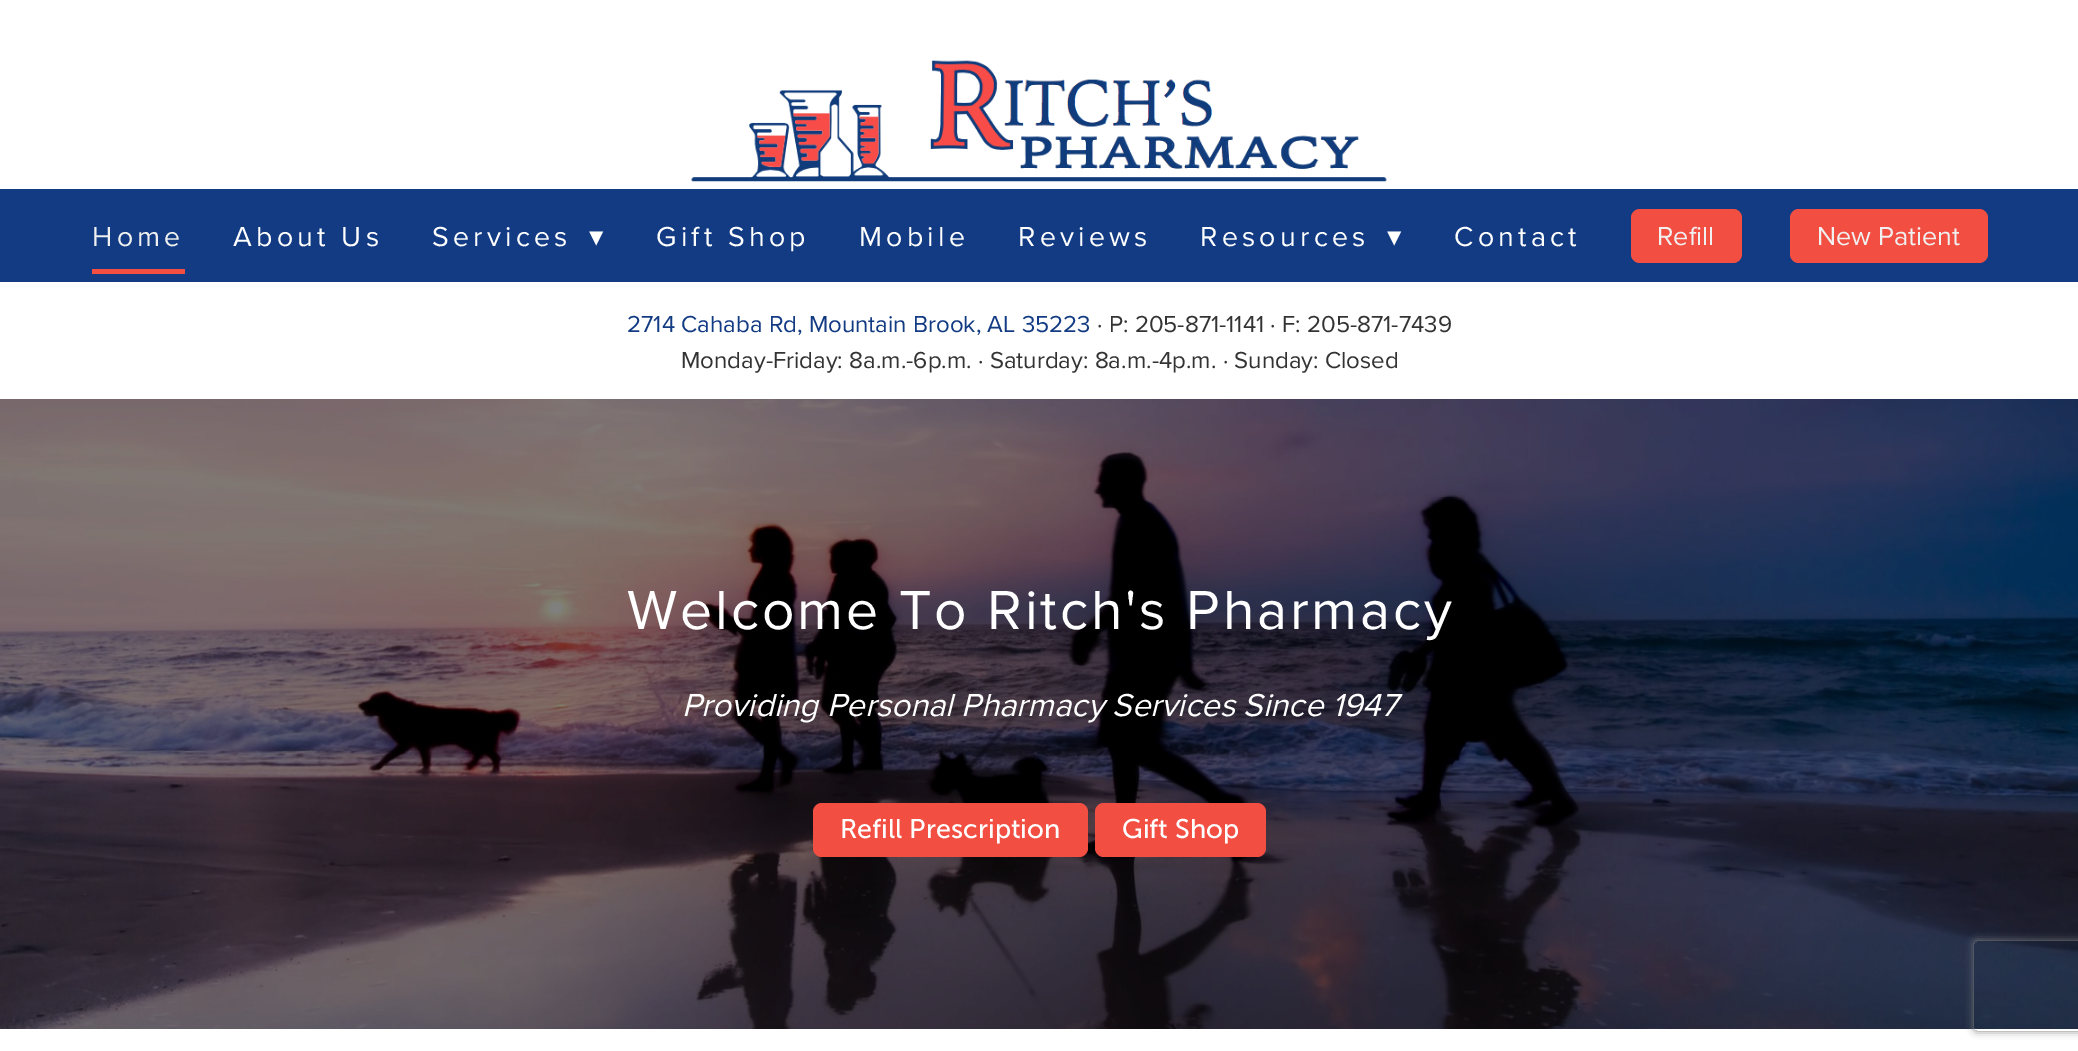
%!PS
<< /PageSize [2078 1051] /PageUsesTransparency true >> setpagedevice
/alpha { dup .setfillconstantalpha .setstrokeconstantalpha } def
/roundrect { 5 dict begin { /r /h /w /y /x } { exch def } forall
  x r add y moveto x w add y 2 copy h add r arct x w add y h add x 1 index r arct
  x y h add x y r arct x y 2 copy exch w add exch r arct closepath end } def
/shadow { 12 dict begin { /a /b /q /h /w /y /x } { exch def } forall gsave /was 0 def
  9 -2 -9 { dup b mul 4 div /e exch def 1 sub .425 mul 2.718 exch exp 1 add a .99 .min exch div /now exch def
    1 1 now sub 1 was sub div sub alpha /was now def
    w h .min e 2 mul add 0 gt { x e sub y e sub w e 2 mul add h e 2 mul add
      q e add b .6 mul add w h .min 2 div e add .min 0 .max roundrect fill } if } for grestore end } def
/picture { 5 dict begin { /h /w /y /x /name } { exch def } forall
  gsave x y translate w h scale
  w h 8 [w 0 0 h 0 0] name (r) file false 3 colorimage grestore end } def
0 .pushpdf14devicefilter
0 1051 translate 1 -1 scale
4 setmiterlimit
1 setgray
0 0 2078 1051 rectfill
(img1.rgb) 691 60 696 122 picture
0.071 0.231 0.514 setrgbcolor
0 189 2078 93 rectfill
0.949 0.306 0.259 setrgbcolor
92 269 93 5 rectfill
/ProximaNova-Regular [28.5 0 0 -28.5 0 0] selectfont
0.941 setgray
92 246 moveto 4.25 0 (Home) ashow
1 setgray
233 246 moveto 4.25 0 (About Us) ashow
432 246 moveto 4.25 0 (Services) ashow
/DejaVuSans-Regular [28.5 0 0 -28.5 0 0] selectfont
589 246 moveto 4.25 0 (▾) ashow
/ProximaNova-Regular [28.5 0 0 -28.5 0 0] selectfont
656 246 moveto 4.25 0 (Gift Shop) ashow
859 246 moveto 4.25 0 (Mobile) ashow
1018 246 moveto 4.25 0 (Reviews) ashow
1200 246 moveto 4.25 0 (Resources) ashow
/DejaVuSans-Regular [28.5 0 0 -28.5 0 0] selectfont
1387 246 moveto 4.25 0 (▾) ashow
/ProximaNova-Regular [28.5 0 0 -28.5 0 0] selectfont
1454 246 moveto 4.25 0 (Contact) ashow
0.949 0.306 0.259 setrgbcolor
1631 209 111 54 9 roundrect fill
/ProximaNova-Regular [27 0 0 -27 0 0] selectfont
0.941 setgray
1657 245 moveto (Refill) show
0.949 0.306 0.259 setrgbcolor
1790 209 198 54 9 roundrect fill
0.941 setgray
1817 245 moveto (New Patient) show
/ProximaNova-Regular [24 0 0 -24 0 0] selectfont
0.071 0.231 0.514 setrgbcolor
627 332 moveto (2714 Cahaba Rd, Mountain Brook, AL 35223) show
0.2 setgray
1097 332 moveto (· P: 205-871-1141 · F: 205-871-7439) show
681 368 moveto (Monday-Friday: 8a.m.-6p.m. · Saturday: 8a.m.-4p.m. · Sunday: Closed) show
(img2.rgb) 0 399 2078 630 picture
/ProximaNova-Regular [57 0 0 -57 0 0] selectfont
1 setgray
627 629 moveto 2.85 0 (Welcome To Ritch's Pharmacy) ashow
/ProximaNova-Italic [33 0 0 -33 0 0] selectfont
682 716 moveto (Providing Personal Pharmacy Services Since 1947) show
0.949 0.306 0.259 setrgbcolor
813 803 275 54 9 roundrect fill
/MuseoSans-Regular [27 0 0 -27 0 0] selectfont
1 setgray
840 838 moveto (Refill Prescription) show
0.949 0.306 0.259 setrgbcolor
1095 803 171 54 9 roundrect fill
1 setgray
1122 838 moveto (Gift Shop) show
gsave
newpath 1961 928 moveto 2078 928 lineto 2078 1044 lineto 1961 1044 lineto closepath 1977 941 moveto 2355 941 lineto 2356.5 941 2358 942.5 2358 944 curveto 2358 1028 lineto 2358 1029.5 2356.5 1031 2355 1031 curveto 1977 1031 lineto 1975.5 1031 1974 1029.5 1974 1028 curveto 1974 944 lineto 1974 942.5 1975.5 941 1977 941 curveto closepath eoclip newpath
0.502 setgray
1974 941 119 90 3 4 1 shadow
grestore
.poppdf14devicefilter showpage
